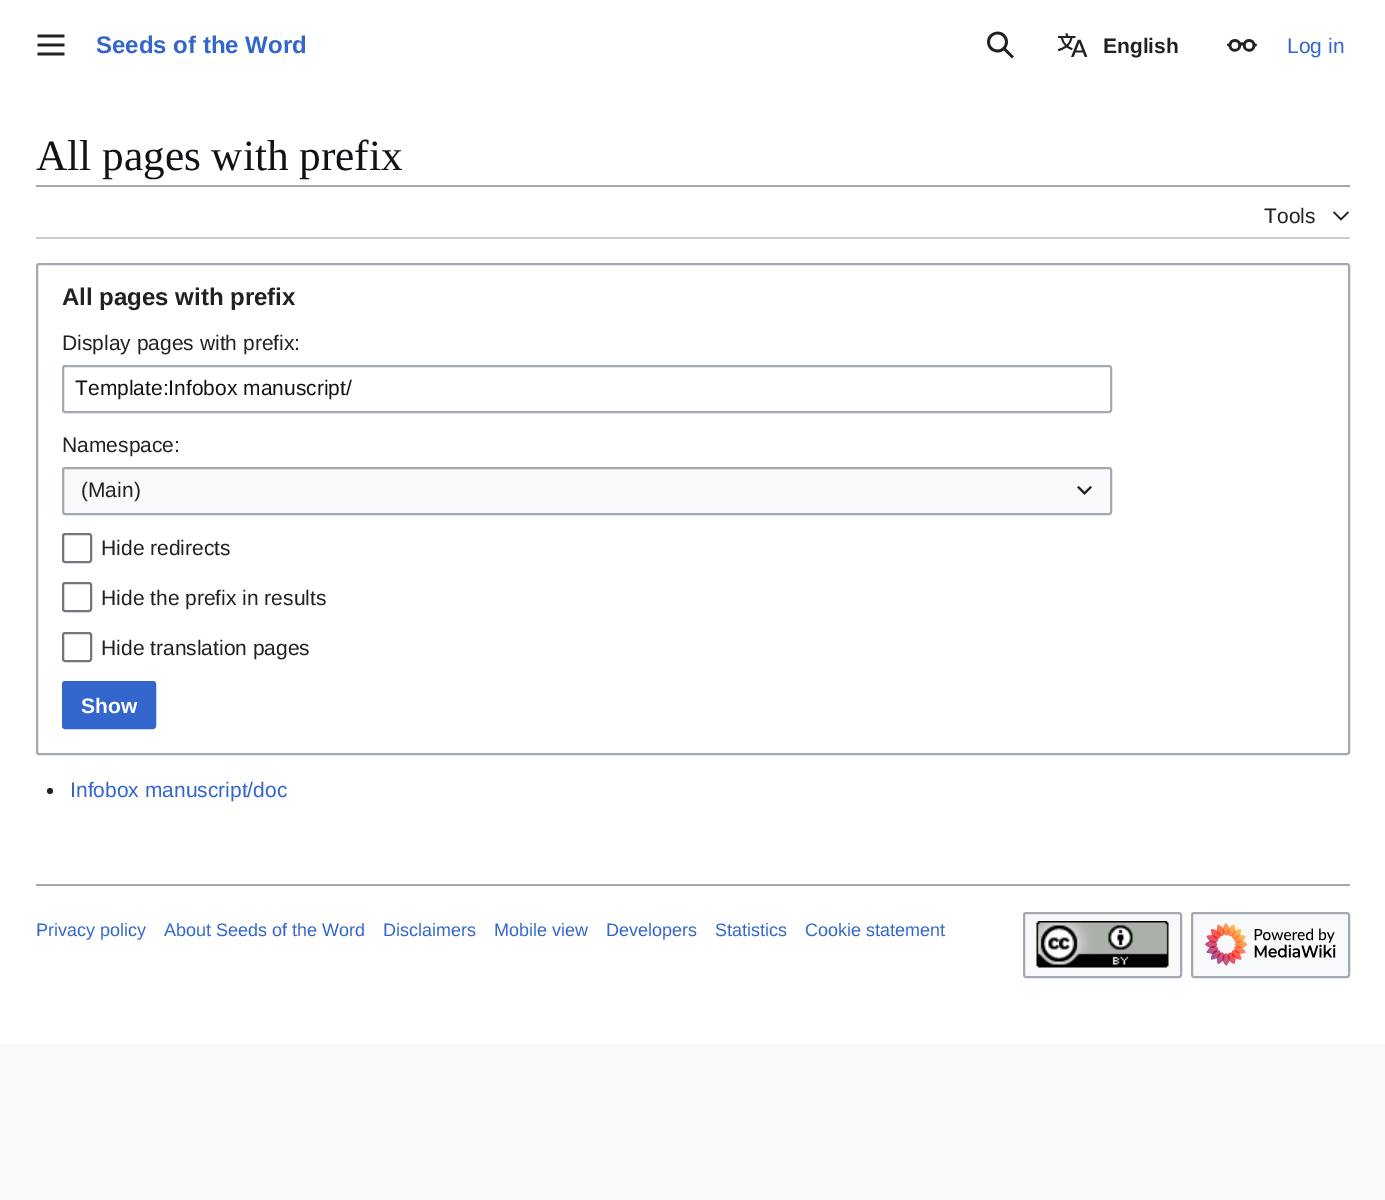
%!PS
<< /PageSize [1385 1200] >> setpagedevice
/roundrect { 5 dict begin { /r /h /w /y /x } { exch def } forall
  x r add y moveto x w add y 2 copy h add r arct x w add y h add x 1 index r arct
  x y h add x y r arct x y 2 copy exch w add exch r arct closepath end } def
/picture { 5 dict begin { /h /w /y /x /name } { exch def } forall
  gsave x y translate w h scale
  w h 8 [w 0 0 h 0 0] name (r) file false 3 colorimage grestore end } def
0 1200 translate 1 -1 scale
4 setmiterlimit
0.973 0.976 0.98 setrgbcolor
0 0 1385 1200 rectfill
1 setgray
0 0 1385 1044 rectfill
(img1.rgb) 37 34 28 22 picture
/LiberationSans-Bold [24 0 0 -24 0 0] selectfont
0.2 0.4 0.8 setrgbcolor
96 53 moveto (Seeds of the Word) show
(img2.rgb) 987 31 27 28 picture
(img3.rgb) 1058 33 30 24 picture
/LiberationSans-Bold [21 0 0 -21 0 0] selectfont
0.125 0.129 0.133 setrgbcolor
1103 53 moveto (English) show
(img4.rgb) 1227 39 30 13 picture
/LiberationSans-Regular [21 0 0 -21 0 0] selectfont
0.2 0.4 0.8 setrgbcolor
1287 53 moveto (Log in) show
/LiberationSerif-Regular [43.25 0 0 -43.25 0 0] selectfont
0.063 0.078 0.094 setrgbcolor
36 170 moveto (All pages with prefix) show
0.635 0.663 0.694 setrgbcolor
36 185 1314 2 rectfill
0.784 0.8 0.82 setrgbcolor
36 237 1314 2 rectfill
/LiberationSans-Regular [21 0 0 -21 0 0] selectfont
0.125 0.129 0.133 setrgbcolor
1264 223 moveto (Tools) show
(img5.rgb) 1333 211 16 10 picture
0.635 0.663 0.694 setrgbcolor
2 setlinewidth
37 264 1312 490 2 roundrect stroke
/LiberationSans-Bold [24 0 0 -24 0 0] selectfont
0.125 0.129 0.133 setrgbcolor
62 305 moveto (All pages with prefix) show
/LiberationSans-Regular [21 0 0 -21 0 0] selectfont
62 350 moveto (Display pages with prefix:) show
0.635 0.663 0.694 setrgbcolor
63 366 1048 46 2 roundrect stroke
0.063 0.078 0.094 setrgbcolor
75 395 moveto (Template:Infobox manuscript/) show
0.125 0.129 0.133 setrgbcolor
62 452 moveto (Namespace:) show
0.973 0.976 0.98 setrgbcolor
62 467 1050 48 rectfill
0.635 0.663 0.694 setrgbcolor
63 468 1048 46 2 roundrect stroke
0.125 0.129 0.133 setrgbcolor
81 497 moveto (\(Main\)) show
(img6.rgb) 1077 486 15 9 picture
0.447 0.467 0.49 setrgbcolor
63 534 28 28 2 roundrect stroke
0.125 0.129 0.133 setrgbcolor
101 555 moveto (Hide redirects) show
0.447 0.467 0.49 setrgbcolor
63 583 28 28 2 roundrect stroke
0.125 0.129 0.133 setrgbcolor
101 605 moveto (Hide the prefix in results) show
0.447 0.467 0.49 setrgbcolor
63 633 28 28 2 roundrect stroke
0.125 0.129 0.133 setrgbcolor
101 655 moveto (Hide translation pages) show
0.2 0.4 0.8 setrgbcolor
63 682 92 46 2 roundrect gsave fill grestore
stroke
/LiberationSans-Bold [21 0 0 -21 0 0] selectfont
1 setgray
81 713 moveto (Show) show
0.125 0.129 0.133 setrgbcolor
newpath 50 791 3 0 360 arc closepath fill
/LiberationSans-Regular [21 0 0 -21 0 0] selectfont
0.2 0.4 0.8 setrgbcolor
70 797 moveto (Infobox manuscript/doc) show
0.635 0.663 0.694 setrgbcolor
36 884 1314 2 rectfill
/LiberationSans-Regular [18 0 0 -18 0 0] selectfont
0.2 0.4 0.8 setrgbcolor
36 936 moveto (Privacy policy) show
164 936 moveto (About Seeds of the Word) show
383 936 moveto (Disclaimers) show
494 936 moveto (Mobile view) show
606 936 moveto (Developers) show
715 936 moveto (Statistics) show
805 936 moveto (Cookie statement) show
0.973 0.976 0.98 setrgbcolor
1024 913 157 64 2 roundrect gsave fill grestore
0.635 0.663 0.694 setrgbcolor
stroke
(img7.rgb) 1036 921 133 47 picture
0.973 0.976 0.98 setrgbcolor
1192 913 157 64 2 roundrect gsave fill grestore
0.635 0.663 0.694 setrgbcolor
stroke
(img8.rgb) 1205 922 131 44 picture
showpage
